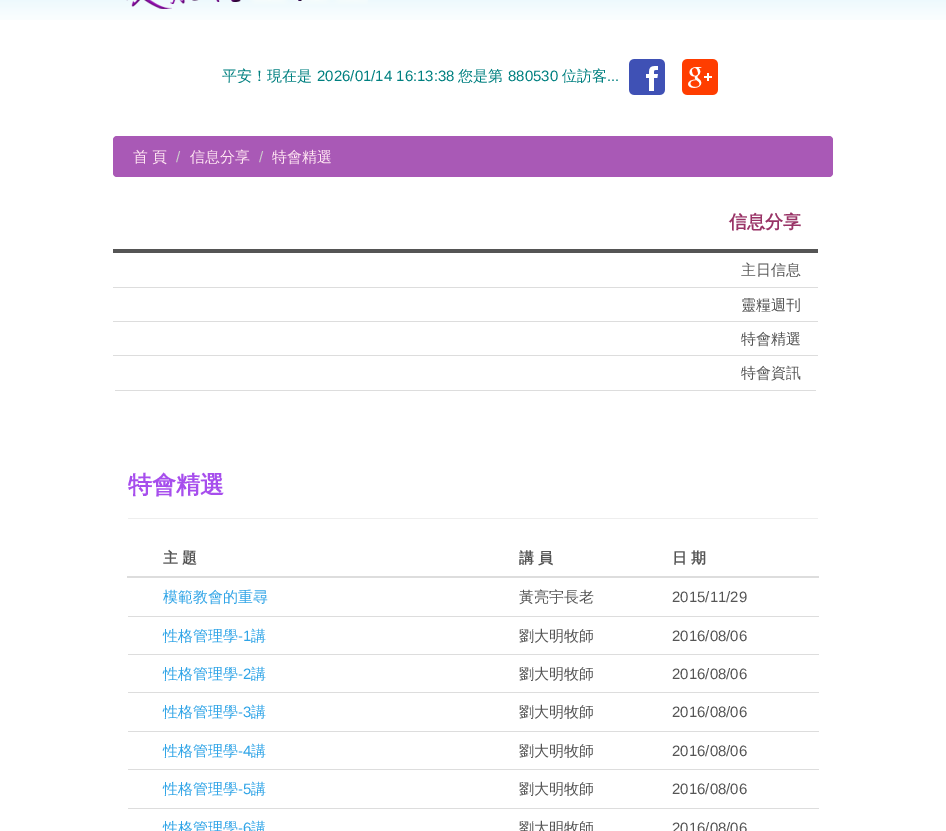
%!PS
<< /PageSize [946 831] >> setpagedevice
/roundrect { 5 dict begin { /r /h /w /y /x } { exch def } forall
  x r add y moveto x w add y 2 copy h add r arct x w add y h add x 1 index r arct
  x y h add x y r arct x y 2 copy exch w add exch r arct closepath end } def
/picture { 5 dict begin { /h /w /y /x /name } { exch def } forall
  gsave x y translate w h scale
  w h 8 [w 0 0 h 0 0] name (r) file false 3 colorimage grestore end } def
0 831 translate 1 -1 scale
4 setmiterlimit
1 setgray
0 0 946 831 rectfill
(img1.rgb) 0 0 946 20 picture
(img2.rgb) 126 0 242 9 picture
/WenQuanYiZenHei-Medium [15 0 0 -15 0 0] selectfont
0 0.502 0.502 setrgbcolor
222 81 moveto (平安！現在是) show
/LiberationSans-Regular [15 0 0 -15 0 0] selectfont
317 81 moveto (2026/01/14 16:13:38) show
/WenQuanYiZenHei-Medium [15 0 0 -15 0 0] selectfont
458 81 moveto (您是第) show
/LiberationSans-Regular [15 0 0 -15 0 0] selectfont
508 81 moveto (880530) show
/WenQuanYiZenHei-Medium [15 0 0 -15 0 0] selectfont
562 81 moveto (位訪客) show
/LiberationSans-Regular [15 0 0 -15 0 0] selectfont
607 81 moveto (...) show
(img3.rgb) 629 59 36 36 picture
(img4.rgb) 682 59 36 36 picture
0.663 0.349 0.714 setrgbcolor
113 136 720 41 4 roundrect fill
/WenQuanYiZenHei-Medium [15 0 0 -15 0 0] selectfont
1 0.902 0.949 setrgbcolor
133 162 moveto (首 頁) show
/LiberationSans-Regular [15 0 0 -15 0 0] selectfont
0.8 setgray
176 162 moveto (/) show
/WenQuanYiZenHei-Medium [15 0 0 -15 0 0] selectfont
1 0.902 0.949 setrgbcolor
190 162 moveto (信息分享) show
/LiberationSans-Regular [15 0 0 -15 0 0] selectfont
0.8 setgray
259 162 moveto (/) show
/WenQuanYiZenHei-Medium [15 0 0 -15 0 0] selectfont
1 0.902 0.949 setrgbcolor
272 162 moveto (特會精選) show
0.333 setgray
113 249 705 4 rectfill
/WenQuanYiZenHei-Bold [18 0 0 -18 0 0] selectfont
0.6 0.2 0.4 setrgbcolor
729 228 moveto (信息分享) show
0.867 setgray
113 287 705 1 rectfill
/WenQuanYiZenHei-Medium [15 0 0 -15 0 0] selectfont
0.333 setgray
741 275 moveto (主日信息) show
0.867 setgray
113 321 705 1 rectfill
0.333 setgray
741 310 moveto (靈糧週刊) show
0.867 setgray
113 355 705 1 rectfill
0.333 setgray
741 344 moveto (特會精選) show
0.867 setgray
115 390 701 1 rectfill
0.333 setgray
741 378 moveto (特會資訊) show
0.933 setgray
128 518 690 1 rectfill
/WenQuanYiZenHei-Bold [24 0 0 -24 0 0] selectfont
0.655 0.306 0.929 setrgbcolor
128 493 moveto (特會精選) show
/WenQuanYiZenHei-Bold [15 0 0 -15 0 0] selectfont
0.333 setgray
163 563 moveto (主 題) show
519 563 moveto (講 員) show
0.867 setgray
127 576 692 2 rectfill
0.333 setgray
672 563 moveto (日 期) show
/WenQuanYiZenHei-Medium [15 0 0 -15 0 0] selectfont
0.184 0.643 0.906 setrgbcolor
163 602 moveto (模範教會的重尋) show
0.333 setgray
519 602 moveto (黃亮宇長老) show
/LiberationSans-Regular [15 0 0 -15 0 0] selectfont
672 602 moveto (2015/11/29) show
/WenQuanYiZenHei-Medium [15 0 0 -15 0 0] selectfont
0.184 0.643 0.906 setrgbcolor
163 641 moveto (性格管理學) show
/LiberationSans-Regular [15 0 0 -15 0 0] selectfont
238 641 moveto (-1) show
/WenQuanYiZenHei-Medium [15 0 0 -15 0 0] selectfont
251 641 moveto (講) show
0.333 setgray
519 641 moveto (劉大明牧師) show
0.867 setgray
128 616 691 1 rectfill
/LiberationSans-Regular [15 0 0 -15 0 0] selectfont
0.333 setgray
672 641 moveto (2016/08/06) show
/WenQuanYiZenHei-Medium [15 0 0 -15 0 0] selectfont
0.184 0.643 0.906 setrgbcolor
163 679 moveto (性格管理學) show
/LiberationSans-Regular [15 0 0 -15 0 0] selectfont
238 679 moveto (-2) show
/WenQuanYiZenHei-Medium [15 0 0 -15 0 0] selectfont
251 679 moveto (講) show
0.333 setgray
519 679 moveto (劉大明牧師) show
0.867 setgray
128 654 691 1 rectfill
/LiberationSans-Regular [15 0 0 -15 0 0] selectfont
0.333 setgray
672 679 moveto (2016/08/06) show
/WenQuanYiZenHei-Medium [15 0 0 -15 0 0] selectfont
0.184 0.643 0.906 setrgbcolor
163 717 moveto (性格管理學) show
/LiberationSans-Regular [15 0 0 -15 0 0] selectfont
238 717 moveto (-3) show
/WenQuanYiZenHei-Medium [15 0 0 -15 0 0] selectfont
251 717 moveto (講) show
0.333 setgray
519 717 moveto (劉大明牧師) show
0.867 setgray
128 692 691 1 rectfill
/LiberationSans-Regular [15 0 0 -15 0 0] selectfont
0.333 setgray
672 717 moveto (2016/08/06) show
/WenQuanYiZenHei-Medium [15 0 0 -15 0 0] selectfont
0.184 0.643 0.906 setrgbcolor
163 756 moveto (性格管理學) show
/LiberationSans-Regular [15 0 0 -15 0 0] selectfont
238 756 moveto (-4) show
/WenQuanYiZenHei-Medium [15 0 0 -15 0 0] selectfont
251 756 moveto (講) show
0.333 setgray
519 756 moveto (劉大明牧師) show
0.867 setgray
128 731 691 1 rectfill
/LiberationSans-Regular [15 0 0 -15 0 0] selectfont
0.333 setgray
672 756 moveto (2016/08/06) show
/WenQuanYiZenHei-Medium [15 0 0 -15 0 0] selectfont
0.184 0.643 0.906 setrgbcolor
163 794 moveto (性格管理學) show
/LiberationSans-Regular [15 0 0 -15 0 0] selectfont
238 794 moveto (-5) show
/WenQuanYiZenHei-Medium [15 0 0 -15 0 0] selectfont
251 794 moveto (講) show
0.333 setgray
519 794 moveto (劉大明牧師) show
0.867 setgray
128 769 691 1 rectfill
/LiberationSans-Regular [15 0 0 -15 0 0] selectfont
0.333 setgray
672 794 moveto (2016/08/06) show
/WenQuanYiZenHei-Medium [15 0 0 -15 0 0] selectfont
0.184 0.643 0.906 setrgbcolor
163 833 moveto (性格管理學) show
/LiberationSans-Regular [15 0 0 -15 0 0] selectfont
238 833 moveto (-6) show
/WenQuanYiZenHei-Medium [15 0 0 -15 0 0] selectfont
251 833 moveto (講) show
0.333 setgray
519 833 moveto (劉大明牧師) show
0.867 setgray
128 808 691 1 rectfill
/LiberationSans-Regular [15 0 0 -15 0 0] selectfont
0.333 setgray
672 833 moveto (2016/08/06) show
showpage
